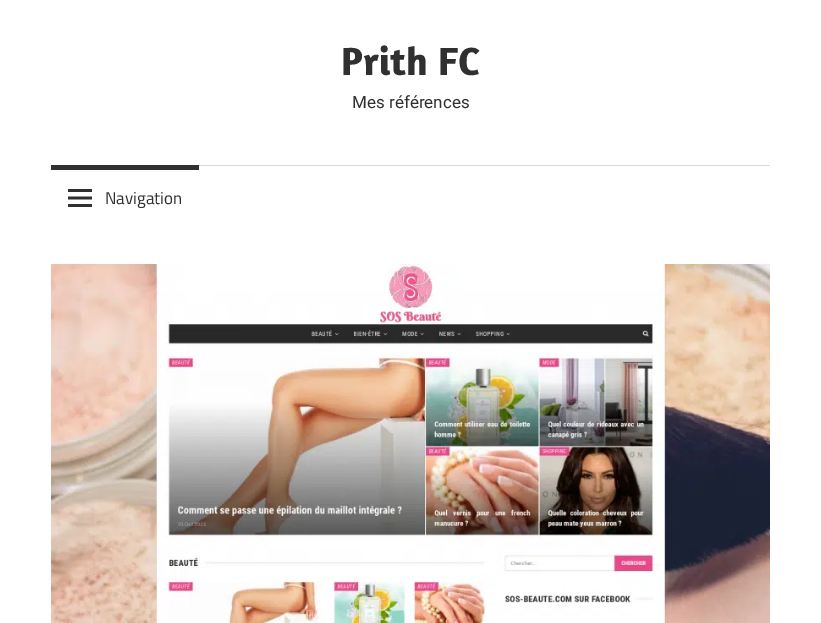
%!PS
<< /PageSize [821 623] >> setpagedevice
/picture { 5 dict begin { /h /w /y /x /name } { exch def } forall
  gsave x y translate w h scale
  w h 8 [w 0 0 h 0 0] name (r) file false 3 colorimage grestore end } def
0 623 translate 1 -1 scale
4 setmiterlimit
1 setgray
0 0 821 623 rectfill
/Amaranth-Bold [40 0 0 -40 0 0] selectfont
0.188 setgray
341 75 moveto (Prith FC) show
/Roboto-Regular [17 0 0 -17 0 0] selectfont
352 108 moveto (Mes références) show
0.851 setgray
199 165 571 1 rectfill
0.188 setgray
51 165 148 5 rectfill
(img1.rgb) 68 189 24 18 picture
/TitilliumWeb-Regular [17 0 0 -17 0 0] selectfont
105 204 moveto (Navigation) show
(img2.rgb) 51 264 719 359 picture
showpage
